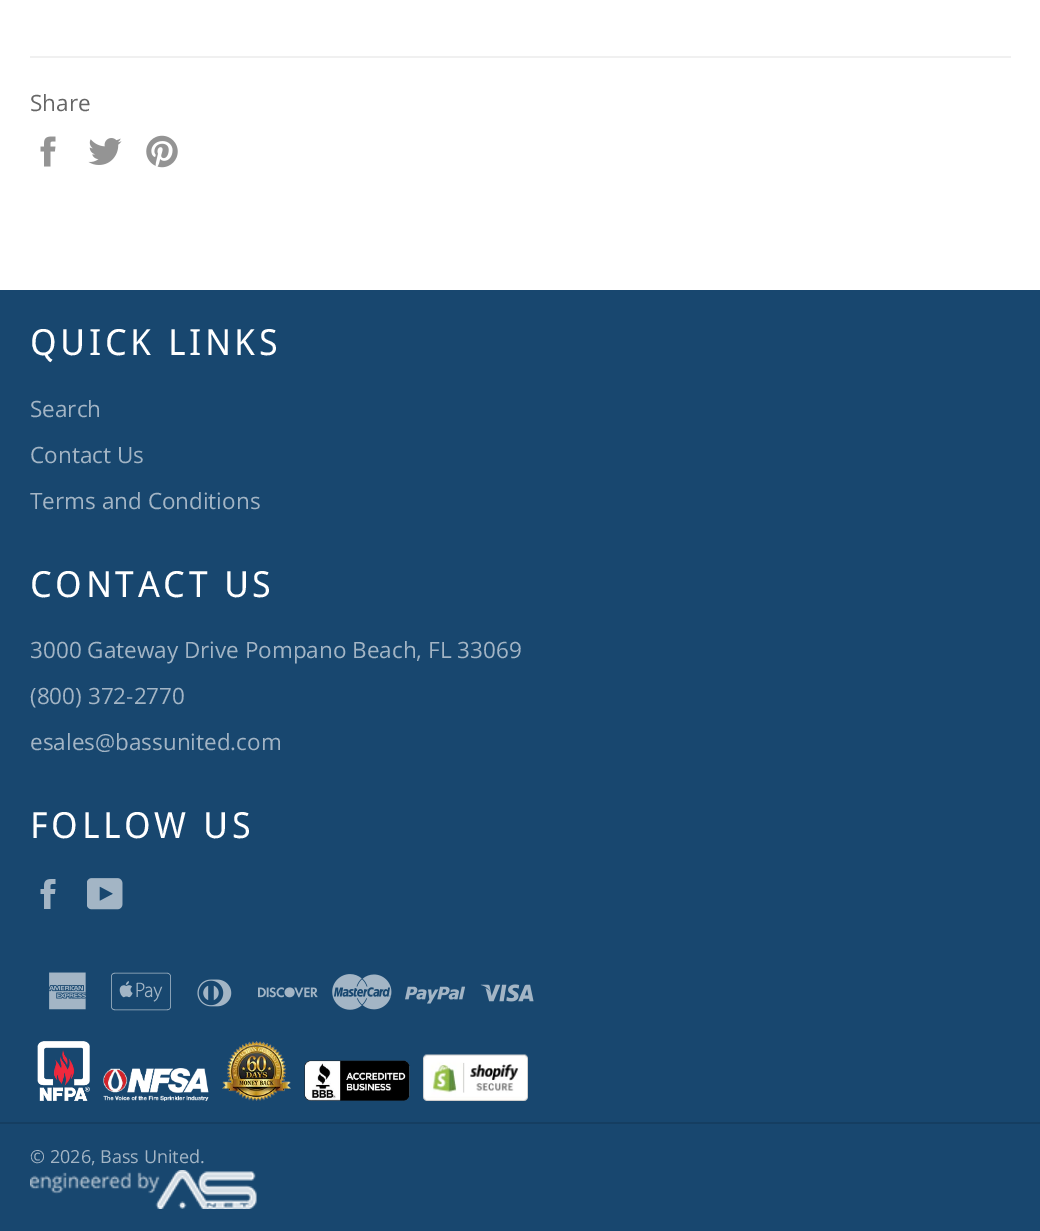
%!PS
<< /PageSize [1040 1231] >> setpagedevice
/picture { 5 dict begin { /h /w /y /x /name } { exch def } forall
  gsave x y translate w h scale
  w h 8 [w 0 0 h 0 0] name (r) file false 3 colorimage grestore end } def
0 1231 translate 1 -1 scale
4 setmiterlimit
1 setgray
0 0 1040 1231 rectfill
0.941 setgray
30 56 981 2 rectfill
/OpenSans-Regular [22.5 0 0 -22.5 0 0] selectfont
0.4 setgray
30 111 moveto (Share) show
(img1.rgb) 40 136 16 31 picture
(img2.rgb) 88 138 34 27 picture
(img3.rgb) 146 135 32 33 picture
0.094 0.278 0.435 setrgbcolor
0 290 1040 941 rectfill
/DroidSans-Regular [36 0 0 -36 0 0] selectfont
1 setgray
30 355 moveto 3.6 0 (QUICK LINKS) ashow
/OpenSans-Regular [22.5 0 0 -22.5 0 0] selectfont
0.639 0.71 0.773 setrgbcolor
30 417 moveto (Search) show
30 463 moveto (Contact Us) show
30 509 moveto (Terms and Conditions) show
/DroidSans-Regular [36 0 0 -36 0 0] selectfont
1 setgray
30 597 moveto 3.6 0 (CONTACT US) ashow
/OpenSans-Regular [22.5 0 0 -22.5 0 0] selectfont
0.639 0.71 0.773 setrgbcolor
30 658 moveto (3000 Gateway Drive Pompano Beach, FL 33069) show
30 704 moveto (\(800\) 372-2770) show
30 750 moveto (esales@bassunited.com) show
/DroidSans-Regular [36 0 0 -36 0 0] selectfont
1 setgray
30 838 moveto 3.6 0 (FOLLOW US) ashow
(img4.rgb) 40 879 16 30 picture
(img5.rgb) 87 878 36 32 picture
(img6.rgb) 49 972 37 38 picture
(img7.rgb) 111 972 60 39 picture
(img8.rgb) 197 979 35 28 picture
(img9.rgb) 258 987 60 11 picture
(img10.rgb) 332 974 60 36 picture
(img11.rgb) 405 986 60 18 picture
(img12.rgb) 480 984 54 18 picture
(img13.rgb) 37 1041 53 60 picture
(img14.rgb) 103 1068 106 33 picture
(img15.rgb) 222 1041 69 60 picture
(img16.rgb) 304 1060 106 41 picture
(img17.rgb) 423 1054 105 47 picture
0.082 0.243 0.38 setrgbcolor
0 1122 1040 2 rectfill
/OpenSans-Regular [18 0 0 -18 0 0] selectfont
0.639 0.71 0.773 setrgbcolor
30 1163 moveto (© 2026, Bass United.) show
(img18.rgb) 30 1170 227 39 picture
showpage
